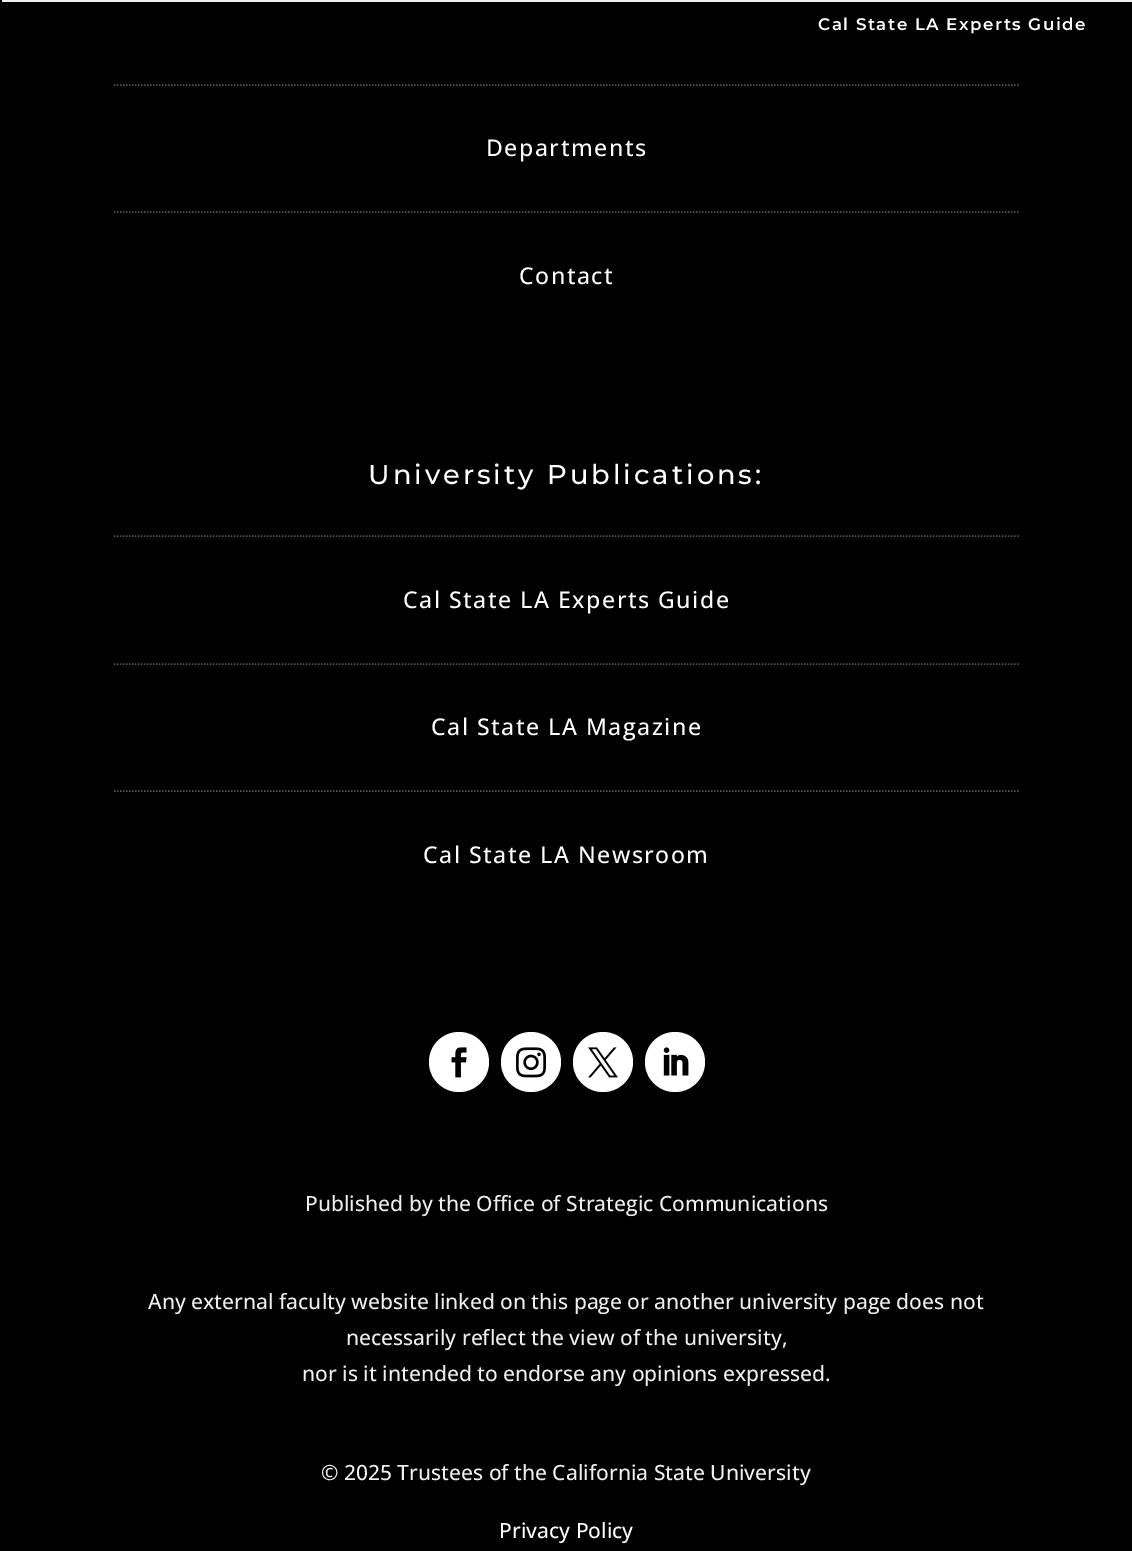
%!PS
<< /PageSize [1132 1551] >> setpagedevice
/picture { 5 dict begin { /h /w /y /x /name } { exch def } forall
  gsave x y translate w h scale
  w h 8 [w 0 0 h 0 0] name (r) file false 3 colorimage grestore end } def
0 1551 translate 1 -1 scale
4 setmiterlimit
0 setgray
0 0 1132 1551 rectfill
0.933 setgray
2 0 1130 2 rectfill
/Montserrat-SemiBold [16.75 0 0 -16.75 0 0] selectfont
1 setgray
818 30 moveto 1.5 0 (Cal State LA Experts Guide) ashow
0.333 setgray
1.5 setlinewidth
[1.5 1.5] 0 setdash
newpath 114 85 moveto 1020 85 lineto stroke
/OpenSans-Medium [23.1 0 0 -23.1 0 0] selectfont
1 setgray
486 156 moveto 1.5 0 (Departments) ashow
0.333 setgray
newpath 114 212 moveto 1020 212 lineto stroke
1 setgray
519 284 moveto 1.5 0 (Contact) ashow
/Montserrat-Medium [27.25 0 0 -27.25 0 0] selectfont
368 484 moveto 3 0 (University Publications:) ashow
0.333 setgray
newpath 114 536 moveto 1020 536 lineto stroke
/OpenSans-Medium [23.1 0 0 -23.1 0 0] selectfont
1 setgray
403 608 moveto 1.5 0 (Cal State LA Experts Guide) ashow
0.333 setgray
newpath 114 664 moveto 1020 664 lineto stroke
newpath 114 791 moveto 1020 791 lineto stroke
1 setgray
431 735 moveto 1.5 0 (Cal State LA Magazine) ashow
423 863 moveto 1.5 0 (Cal State LA Newsroom) ashow
newpath 459 1062 30 0 360 arc closepath fill
(img1.rgb) 451 1047 16 31 picture
newpath 531 1062 30 0 360 arc closepath fill
(img2.rgb) 516 1047 30 31 picture
newpath 603 1062 30 0 360 arc closepath fill
(img3.rgb) 588 1047 30 31 picture
newpath 675 1062 30 0 360 arc closepath fill
(img4.rgb) 663 1047 26 29 picture
/OpenSans-Medium [21 0 0 -21 0 0] selectfont
0.933 setgray
305 1211 moveto (Published by the Office of Strategic Communications) show
148 1309 moveto (Any external faculty website linked on this page or another university page does not) show
346 1345 moveto (necessarily reflect the view of the university,) show
302 1381 moveto (nor is it intended to endorse any opinions expressed.) show
321 1480 moveto (© 2025 Trustees of the California State University) show
1 setgray
499 1538 moveto (Privacy Policy) show
showpage
